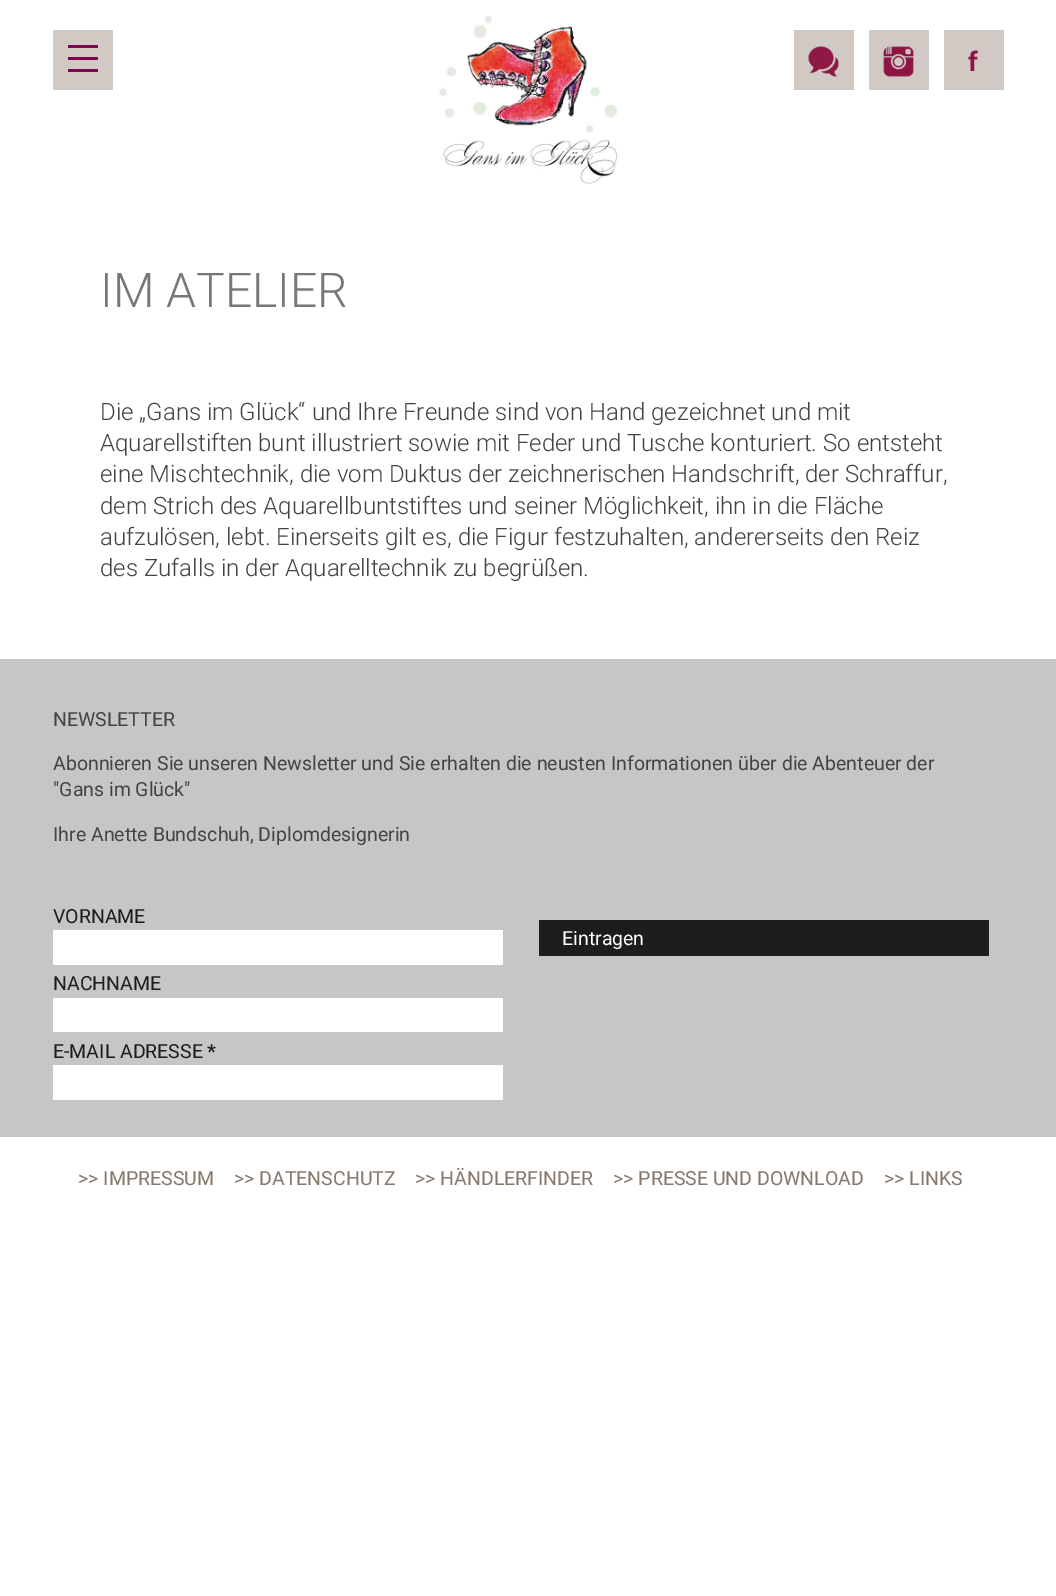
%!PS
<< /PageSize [1056 1596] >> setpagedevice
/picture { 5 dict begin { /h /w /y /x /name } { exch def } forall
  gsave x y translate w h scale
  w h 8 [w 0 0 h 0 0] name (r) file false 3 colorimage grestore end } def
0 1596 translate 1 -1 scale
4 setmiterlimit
1 setgray
0 0 1056 1596 rectfill
(img1.rgb) 439 15 179 169 picture
0.816 0.788 0.769 setrgbcolor
53 30 60 60 rectfill
0.518 0 0.325 setrgbcolor
68 45 30 3 rectfill
68 57 30 3 rectfill
68 69 30 3 rectfill
0.816 0.788 0.769 setrgbcolor
794 30 60 60 rectfill
(img2.rgb) 808 46 31 31 picture
869 30 60 60 rectfill
(img3.rgb) 883 46 31 31 picture
944 30 60 60 rectfill
/Roboto-Bold [27 0 0 -27 0 0] selectfont
0.557 0.078 0.263 setrgbcolor
968 71 moveto (f) show
/Roboto-Light [48 0 0 -48 0 0] selectfont
0.467 setgray
100 307 moveto (IM ATELIER) show
/Roboto-Light [24 0 0 -24 0 0] selectfont
0.267 setgray
100 420 moveto (Die „Gans im Glück“ und Ihre Freunde sind von Hand gezeichnet und mit) show
100 451 moveto (Aquarellstiften bunt illustriert sowie mit Feder und Tusche konturiert. So entsteht) show
100 482 moveto (eine Mischtechnik, die vom Duktus der zeichnerischen Handschrift, der Schraffur,) show
100 514 moveto (dem Strich des Aquarellbuntstiftes und seiner Möglichkeit, ihn in die Fläche) show
100 545 moveto (aufzulösen, lebt. Einerseits gilt es, die Figur festzuhalten, andererseits den Reiz) show
100 576 moveto (des Zufalls in der Aquarelltechnik zu begrüßen.) show
0.776 setgray
0 659 1056 478 rectfill
/Roboto-Regular [19.5 0 0 -19.5 0 0] selectfont
0.267 setgray
53 726 moveto (NEWSLETTER) show
53 770 moveto (Abonnieren Sie unseren Newsletter und Sie erhalten die neusten Informationen über die Abenteuer der) show
53 796 moveto ("Gans im Glück") show
53 841 moveto (Ihre Anette Bundschuh, Diplomdesignerin) show
0.114 0.114 0.106 setrgbcolor
53 923 moveto (VORNAME) show
1 setgray
53 930 450 35 rectfill
0.114 0.114 0.106 setrgbcolor
539 920 450 36 rectfill
1 setgray
562 945 moveto (Eintragen) show
0.114 0.114 0.106 setrgbcolor
53 990 moveto (NACHNAME) show
1 setgray
53 998 450 34 rectfill
0.114 0.114 0.106 setrgbcolor
53 1058 moveto (E-MAIL ADRESSE) show
/Roboto-Bold [19.5 0 0 -19.5 0 0] selectfont
207 1058 moveto (*) show
1 setgray
53 1065 450 35 rectfill
/Roboto-Regular [19.5 0 0 -19.5 0 0] selectfont
0.525 0.471 0.42 setrgbcolor
78 1185 moveto (>> IMPRESSUM) show
234 1185 moveto (>> DATENSCHUTZ) show
415 1185 moveto (>> HÄNDLERFINDER) show
613 1185 moveto (>> PRESSE UND DOWNLOAD) show
884 1185 moveto (>> LINKS) show
showpage
